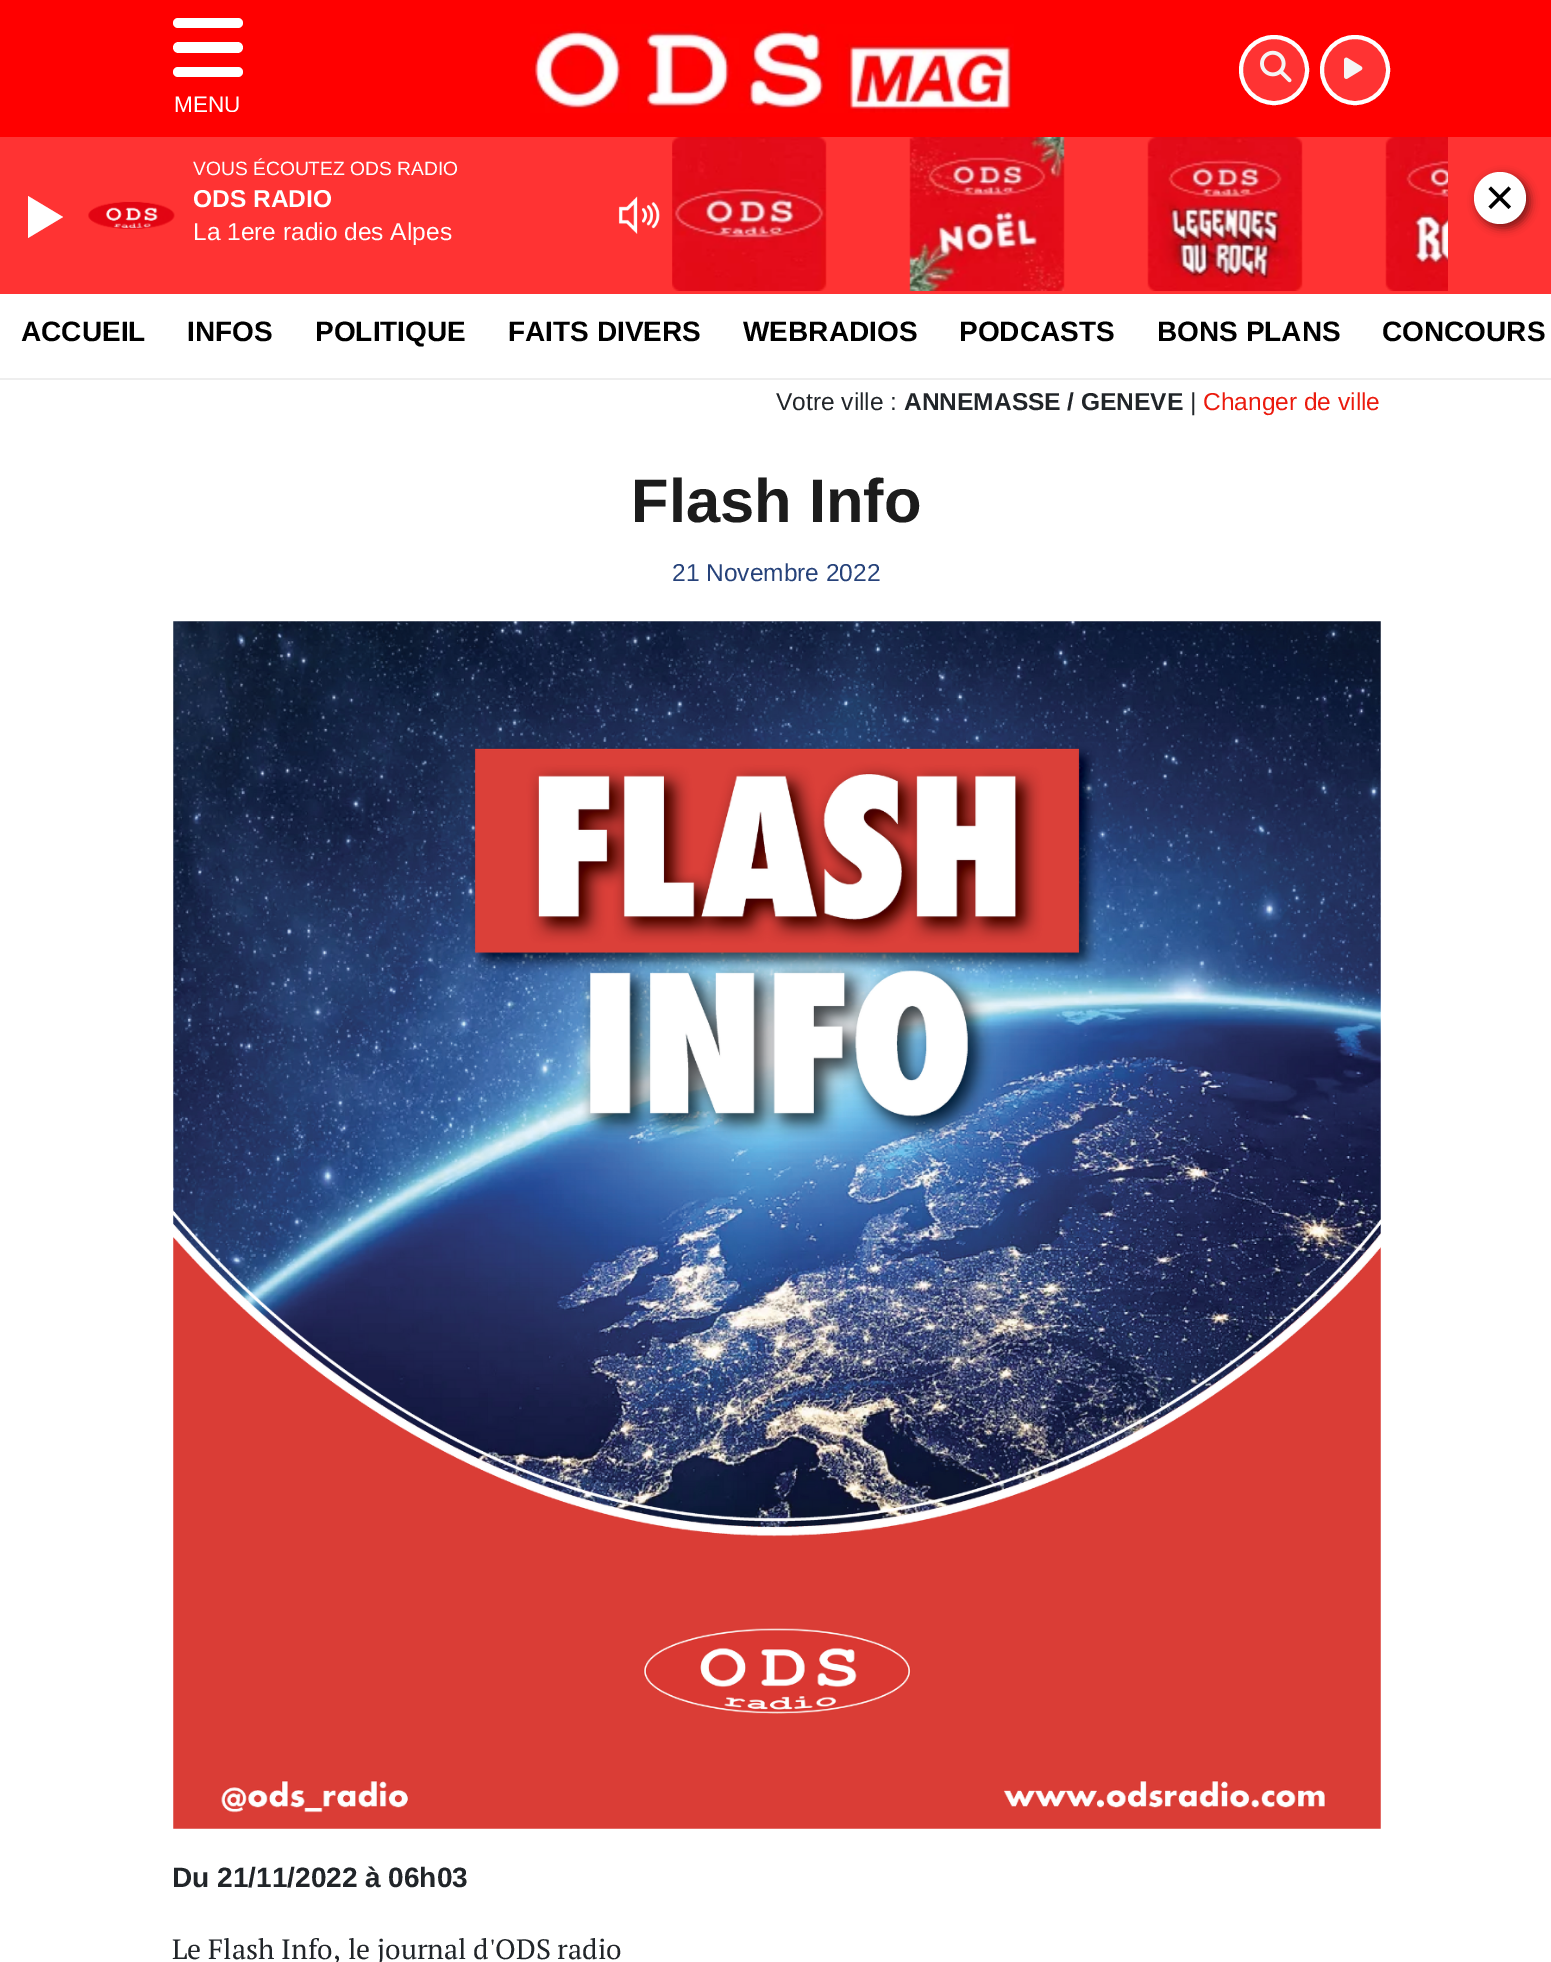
%!PS
<< /PageSize [1551 1962] /PageUsesTransparency true >> setpagedevice
/alpha { dup .setfillconstantalpha .setstrokeconstantalpha } def
/roundrect { 5 dict begin { /r /h /w /y /x } { exch def } forall
  x r add y moveto x w add y 2 copy h add r arct x w add y h add x 1 index r arct
  x y h add x y r arct x y 2 copy exch w add exch r arct closepath end } def
/shadow { 12 dict begin { /a /b /q /h /w /y /x } { exch def } forall gsave /was 0 def
  9 -2 -9 { dup b mul 4 div /e exch def 1 sub .425 mul 2.718 exch exp 1 add a .99 .min exch div /now exch def
    1 1 now sub 1 was sub div sub alpha /was now def
    w h .min e 2 mul add 0 gt { x e sub y e sub w e 2 mul add h e 2 mul add
      q e add b .6 mul add w h .min 2 div e add .min 0 .max roundrect fill } if } for grestore end } def
/picture { 5 dict begin { /h /w /y /x /name } { exch def } forall
  gsave x y translate w h scale
  w h 8 [w 0 0 h 0 0] name (r) file false 3 colorimage grestore end } def
0 .pushpdf14devicefilter
0 1962 translate 1 -1 scale
4 setmiterlimit
1 setgray
0 0 1551 1962 rectfill
1 0 0 setrgbcolor
0 0 1551 137 rectfill
1 setgray
173 18 70 10 5 roundrect fill
173 42 70 11 5.5 roundrect fill
173 67 70 10 5 roundrect fill
gsave
173 18 70 94 rectclip
/LiberationSans-Regular [22.5 0 0 -22.5 0 0] selectfont
174 112 moveto (MENU) show
grestore
(img1.rgb) 530 24 484 89 picture
1 0.2 0.2 setrgbcolor
newpath 1274 70 33 0 360 arc closepath gsave fill grestore
1 setgray
4 setlinewidth
stroke
(img2.rgb) 1260 50 32 33 picture
1 0.2 0.2 setrgbcolor
newpath 1355 70 33 0 360 arc closepath gsave fill grestore
1 setgray
stroke
(img3.rgb) 1344 57 19 22 picture
0.933 setgray
0 378 1551 2 rectfill
/LiberationSans-Bold [28 0 0 -28 0 0] selectfont
0 setgray
21 341 moveto (ACCUEIL) show
187 341 moveto (INFOS) show
315 341 moveto (POLITIQUE) show
508 341 moveto (FAITS DIVERS) show
743 341 moveto (WEBRADIOS) show
959 341 moveto (PODCASTS) show
1157 341 moveto (BONS PLANS) show
1382 341 moveto (CONCOURS) show
/LiberationSans-Regular [24.5 0 0 -24.5 0 0] selectfont
0.129 0.145 0.161 setrgbcolor
776 410 moveto (Votre ville :) show
/LiberationSans-Bold [24.5 0 0 -24.5 0 0] selectfont
904 410 moveto (ANNEMASSE / GENEVE) show
/LiberationSans-Regular [24.5 0 0 -24.5 0 0] selectfont
1190 410 moveto (|) show
0.922 0.102 0.051 setrgbcolor
1203 410 moveto (Changer de ville) show
/LiberationSans-Bold [61.5 0 0 -61.5 0 0] selectfont
0.11 setgray
631 522 moveto (Flash Info) show
/LiberationSans-Regular [24.5 0 0 -24.5 0 0] selectfont
0.149 0.259 0.478 setrgbcolor
672 581 moveto (21 Novembre 2022) show
(img4.rgb) 173 621 1208 1208 picture
/LiberationSans-Bold [28 0 0 -28 0 0] selectfont
0.129 0.145 0.161 setrgbcolor
172 1887 moveto (Du 21/11/2022 à 06h03) show
/PTSerif-Regular [28 0 0 -28 0 0] selectfont
172 1959 moveto (Le Flash Info, le journal d'ODS radio) show
1 0.2 0.2 setrgbcolor
0 137 1551 157 rectfill
/LiberationSans-Regular [19.25 0 0 -19.25 0 0] selectfont
1 setgray
193 175 moveto (VOUS ÉCOUTEZ ODS RADIO) show
/LiberationSans-Bold [24.5 0 0 -24.5 0 0] selectfont
193 207 moveto (ODS RADIO) show
(img5.rgb) 88 201 87 28 picture
/LiberationSans-Regular [24.5 0 0 -24.5 0 0] selectfont
193 240 moveto (La 1ere radio des Alpes) show
newpath 28 238 moveto 28 196 lineto 63 217 lineto closepath fill
(img6.rgb) 618 196 42 38 picture
(img7.rgb) 672 137 155 154 picture
(img8.rgb) 909 137 156 154 picture
(img9.rgb) 1147 137 156 154 picture
(img10.rgb) 1385 137 63 154 picture
0 setgray
1477 175 53 53 26.5 4.5 0.5 shadow
1 setgray
newpath 1500 198 26 0 360 arc closepath fill
0 setgray
newpath 1491 186.5 moveto 1511 206.5 lineto 1508.5 209 lineto 1488.5 189 lineto closepath fill
newpath 1488.5 206.5 moveto 1508.5 186.5 lineto 1511 189 lineto 1491 209 lineto closepath fill
.poppdf14devicefilter showpage
